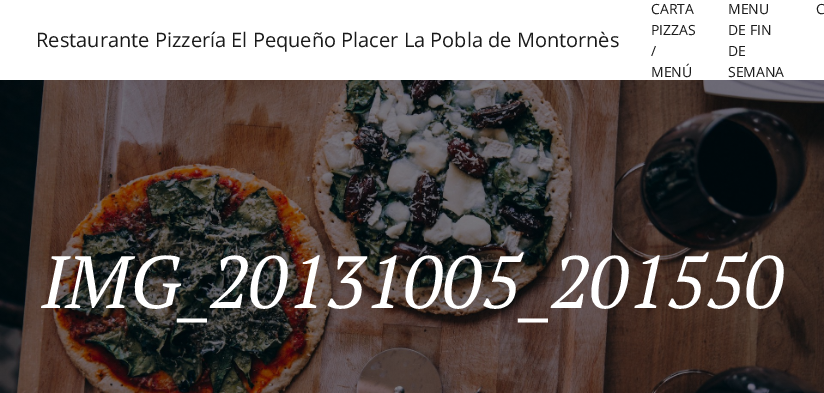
%!PS
<< /PageSize [824 393] >> setpagedevice
/picture { 5 dict begin { /h /w /y /x /name } { exch def } forall
  gsave x y translate w h scale
  w h 8 [w 0 0 h 0 0] name (r) file false 3 colorimage grestore end } def
0 393 translate 1 -1 scale
4 setmiterlimit
1 setgray
0 0 824 393 rectfill
/OpenSans-Regular [20 0 0 -20 0 0] selectfont
0.102 setgray
36 47 moveto (Restaurante Pizzería El Pequeño Placer La Pobla de Montornès) show
/OpenSans-Regular [14 0 0 -14 0 0] selectfont
651 14 moveto (CARTA) show
651 35 moveto (PIZZAS) show
651 56 moveto (/) show
651 77 moveto (MENÚ) show
728 14 moveto (MENU) show
728 35 moveto (DE FIN) show
728 56 moveto (DE) show
728 77 moveto (SEMANA) show
816 14 moveto (C) show
(img1.rgb) 0 80 824 313 picture
/PTSerif-Italic [74 0 0 -74 0 0] selectfont
1 setgray
41 308 moveto (IMG_20131005_201550) show
showpage
